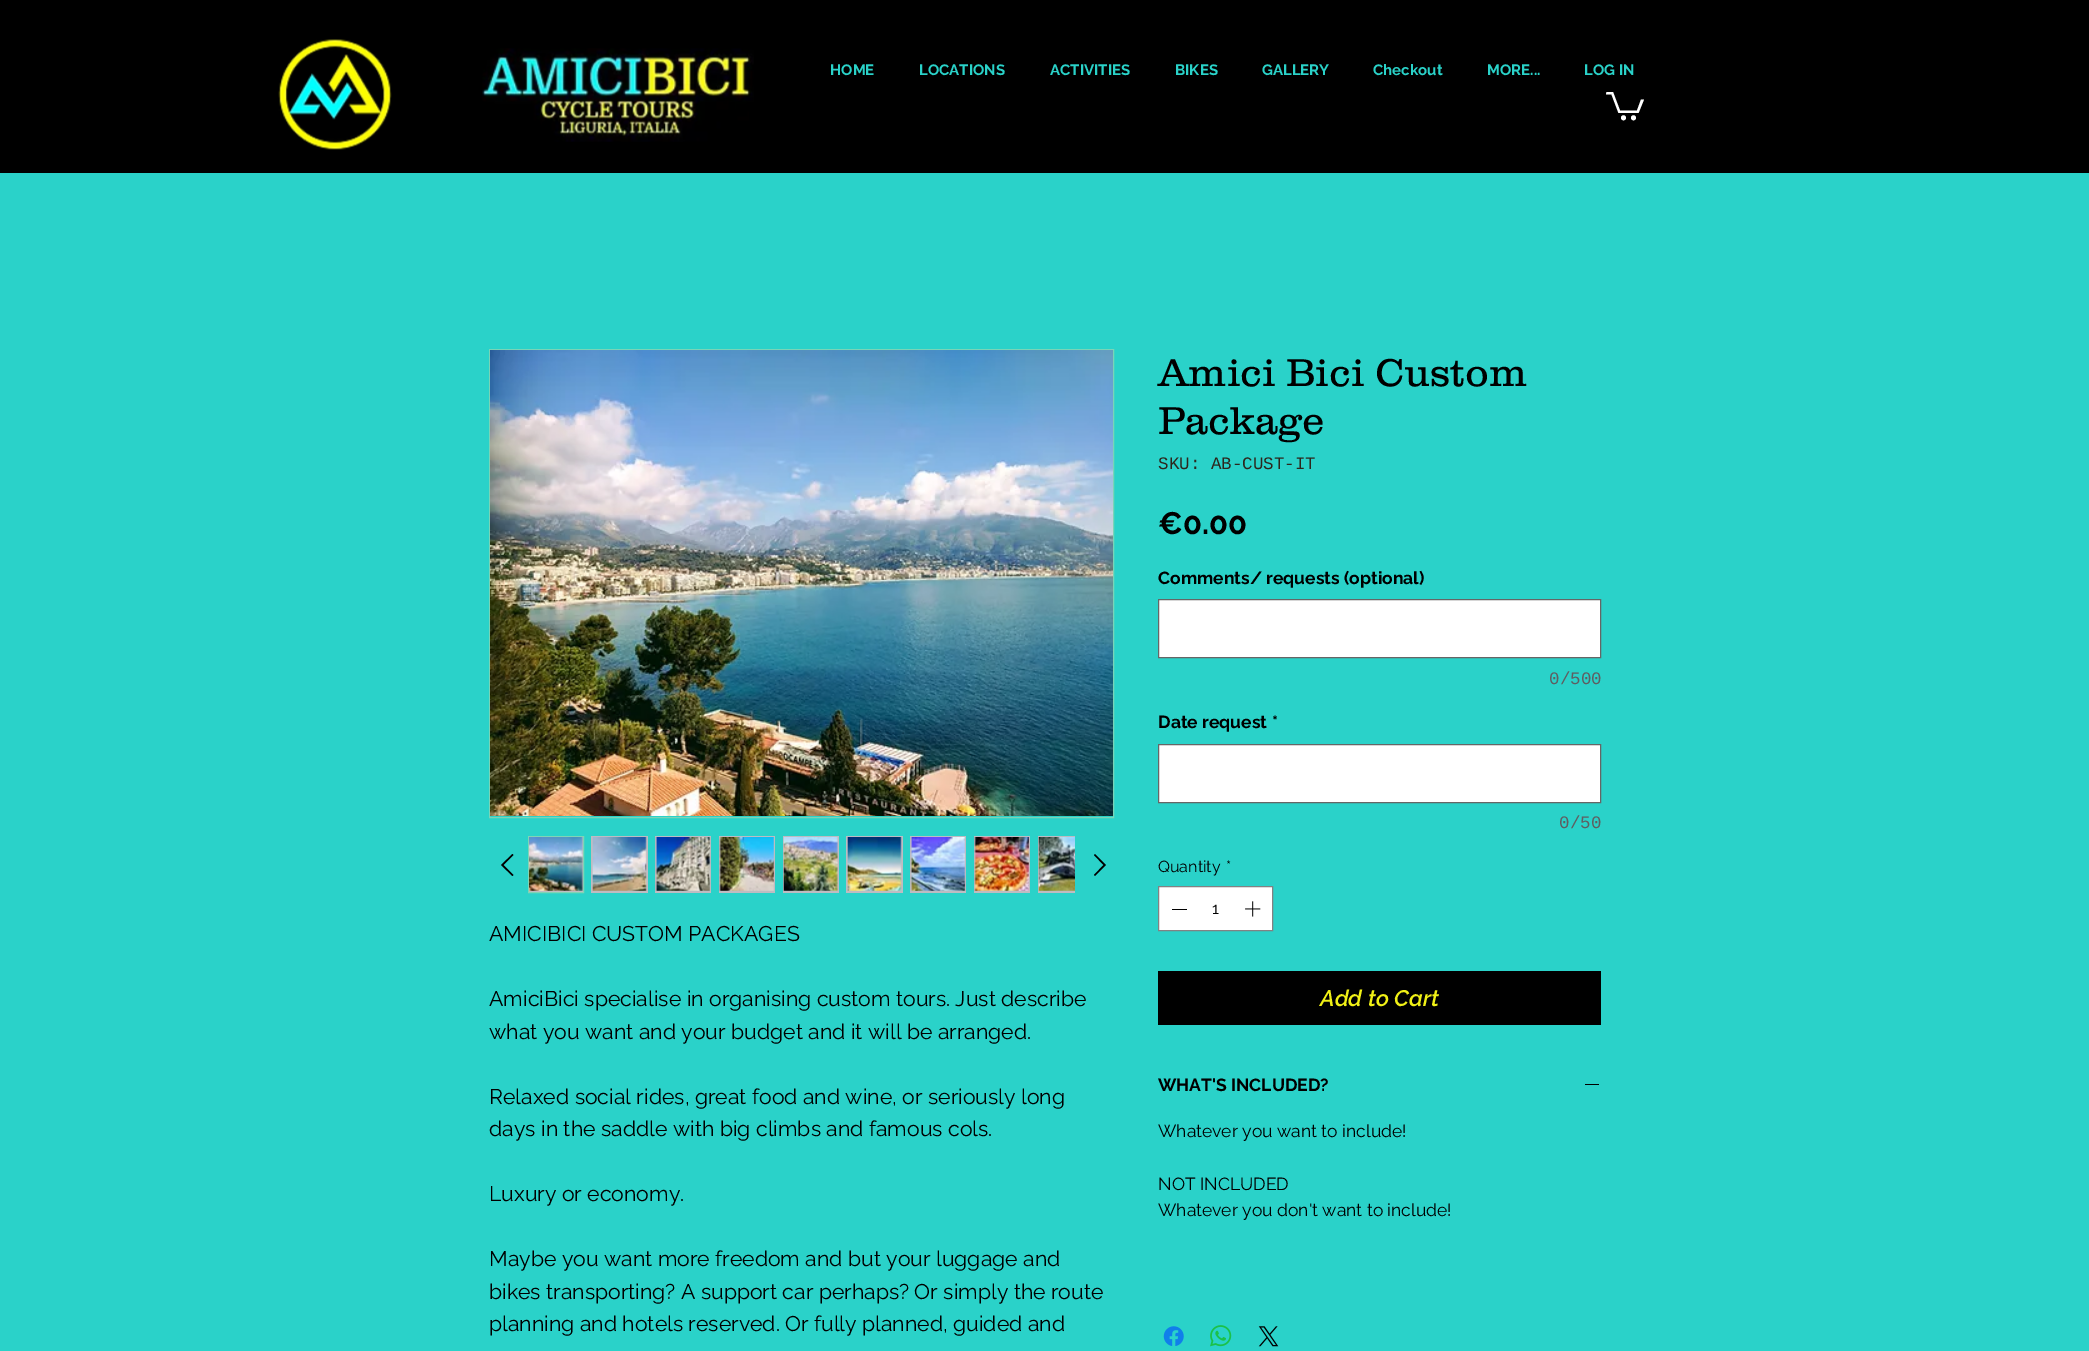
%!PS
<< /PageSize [2089 1351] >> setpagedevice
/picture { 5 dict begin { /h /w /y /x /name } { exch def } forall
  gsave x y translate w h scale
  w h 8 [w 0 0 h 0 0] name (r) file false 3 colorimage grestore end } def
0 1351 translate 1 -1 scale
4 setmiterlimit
0.165 0.824 0.788 setrgbcolor
0 0 2089 1351 rectfill
0 setgray
0 0 2089 173 rectfill
(img1.rgb) 278 39 114 111 picture
(img2.rgb) 482 48 272 94 picture
/Raleway-Bold [15 0 0 -15 0 0] selectfont
0.165 0.824 0.788 setrgbcolor
830 75 moveto (HOME) show
919 75 moveto (LOCATIONS) show
1050 75 moveto (ACTIVITIES) show
1175 75 moveto (BIKES) show
1262 75 moveto (GALLERY) show
1373 75 moveto (Checkout) show
1487 75 moveto (MORE...) show
1584 75 moveto (LOG IN) show
1 setgray
newpath 1644 99.5 moveto 1638.5 113 lineto 1618.5 113 lineto 1611.5 94.5 lineto 1606 94.5 lineto 1606.5 92 lineto 1613 92 lineto 1620 110.5 lineto 1637 110.5 lineto 1641 99.5 lineto fill
newpath 1633.5 117.8 2.5 0 360 arc closepath fill
newpath 1623.5 117.8 2.5 0 360 arc closepath fill
0.478 0.831 0.718 setrgbcolor
489.5 349.5 624 468 rectstroke
(img3.rgb) 490 350 623 466 picture
0 setgray
newpath 512.5 854 moveto 513.5 855 lineto 503.5 865 lineto 513.5 875 lineto 512.5 876 lineto 501 865 lineto closepath eofill
0.745 0.737 0.761 setrgbcolor
newpath 528.5 836.5 moveto 583.5 836.5 lineto 583.5 892.5 lineto 528.5 892.5 lineto closepath gsave fill grestore
0.506 0.831 0.71 setrgbcolor
stroke
(img4.rgb) 529 837 54 54 picture
0.745 0.737 0.761 setrgbcolor
591 836 57 57 rectfill
(img5.rgb) 592 837 55 54 picture
655 836 56 57 rectfill
(img6.rgb) 655 837 56 54 picture
719 836 56 57 rectfill
(img7.rgb) 719 837 55 54 picture
783 836 56 57 rectfill
(img8.rgb) 783 837 55 54 picture
846 836 57 57 rectfill
(img9.rgb) 847 837 55 54 picture
910 836 56 57 rectfill
(img10.rgb) 910 837 56 54 picture
974 836 56 57 rectfill
(img11.rgb) 974 837 55 54 picture
1038 836 37 57 rectfill
(img12.rgb) 1038 837 37 54 picture
0 setgray
newpath 1095 854 moveto 1106 865 lineto 1095 876 lineto 1094 875 lineto 1103.5 865 lineto 1094 855 lineto closepath eofill
/Raleway-Regular [21.25 0 0 -21.25 0 0] selectfont
489 941 moveto (AMICIBICI CUSTOM PACKAGES) show
489 1006 moveto (AmiciBici specialise in organising custom tours. Just describe) show
489 1039 moveto (what you want and your budget and it will be arranged.) show
489 1104 moveto (Relaxed social rides, great food and wine, or seriously long) show
489 1136 moveto (days in the saddle with big climbs and famous cols.) show
489 1201 moveto (Luxury or economy.) show
489 1266 moveto (Maybe you want more freedom and but your luggage and) show
489 1299 moveto (bikes transporting? A support car perhaps? Or simply the route) show
489 1331 moveto (planning and hotels reserved. Or fully planned, guided and) show
/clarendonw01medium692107-Light [40 0 0 -40 0 0] selectfont
1158 386 moveto (Amici Bici Custom) show
1158 434 moveto (Package) show
/LiberationMono-Regular [17.5 0 0 -17.5 0 0] selectfont
0.176 0.153 0.114 setrgbcolor
1158 469 moveto (SKU: AB-CUST-IT) show
/Raleway-Bold [31 0 0 -31 0 0] selectfont
0 setgray
1158 534 moveto (€0.00) show
/Raleway-Bold [17.5 0 0 -17.5 0 0] selectfont
1158 584 moveto (Comments/ requests \(optional\)) show
1 setgray
newpath 1158.5 599.5 moveto 1600.5 599.5 lineto 1600.5 657.5 lineto 1158.5 657.5 lineto closepath gsave fill grestore
0.4 setgray
stroke
/LiberationMono-Regular [17.5 0 0 -17.5 0 0] selectfont
0.373 0.369 0.38 setrgbcolor
1549 684 moveto (0/500) show
/Raleway-Bold [17.5 0 0 -17.5 0 0] selectfont
0 setgray
1158 728 moveto (Date request) show
1272 728 moveto (*) show
1 setgray
newpath 1158.5 744.5 moveto 1600.5 744.5 lineto 1600.5 802.5 lineto 1158.5 802.5 lineto closepath gsave fill grestore
0.4 setgray
stroke
/LiberationMono-Regular [17.5 0 0 -17.5 0 0] selectfont
0.373 0.369 0.38 setrgbcolor
1559 828 moveto (0/50) show
/Raleway-Regular [16 0 0 -16 0 0] selectfont
0 setgray
1158 872 moveto (Quantity) show
1226 872 moveto (*) show
1 setgray
newpath 1158.5 886.5 moveto 1272.5 886.5 lineto 1272.5 930.5 lineto 1158.5 930.5 lineto closepath gsave fill grestore
0.51 0.51 0.514 setrgbcolor
stroke
0 setgray
1172 909 15 1 rectfill
1212 914 moveto (1) show
(img13.rgb) 1245 901 16 16 picture
1158 971 443 54 rectfill
/Raleway-SemiBoldItalic [22.5 0 0 -22.5 0 0] selectfont
0.941 0.941 0.086 setrgbcolor
1320 1006 moveto (Add to Cart) show
/Raleway-Bold [17.5 0 0 -17.5 0 0] selectfont
0 setgray
1158 1091 moveto (WHAT'S INCLUDED?) show
1585 1084 14 1 rectfill
/Raleway-Regular [17.5 0 0 -17.5 0 0] selectfont
1158 1137 moveto (Whatever you want to include!) show
1158 1190 moveto (NOT INCLUDED) show
1158 1216 moveto (Whatever you don't want to include!) show
(img14.rgb) 1163 1326 21 20 picture
(img15.rgb) 1210 1325 22 22 picture
(img16.rgb) 1258 1326 21 21 picture
showpage
